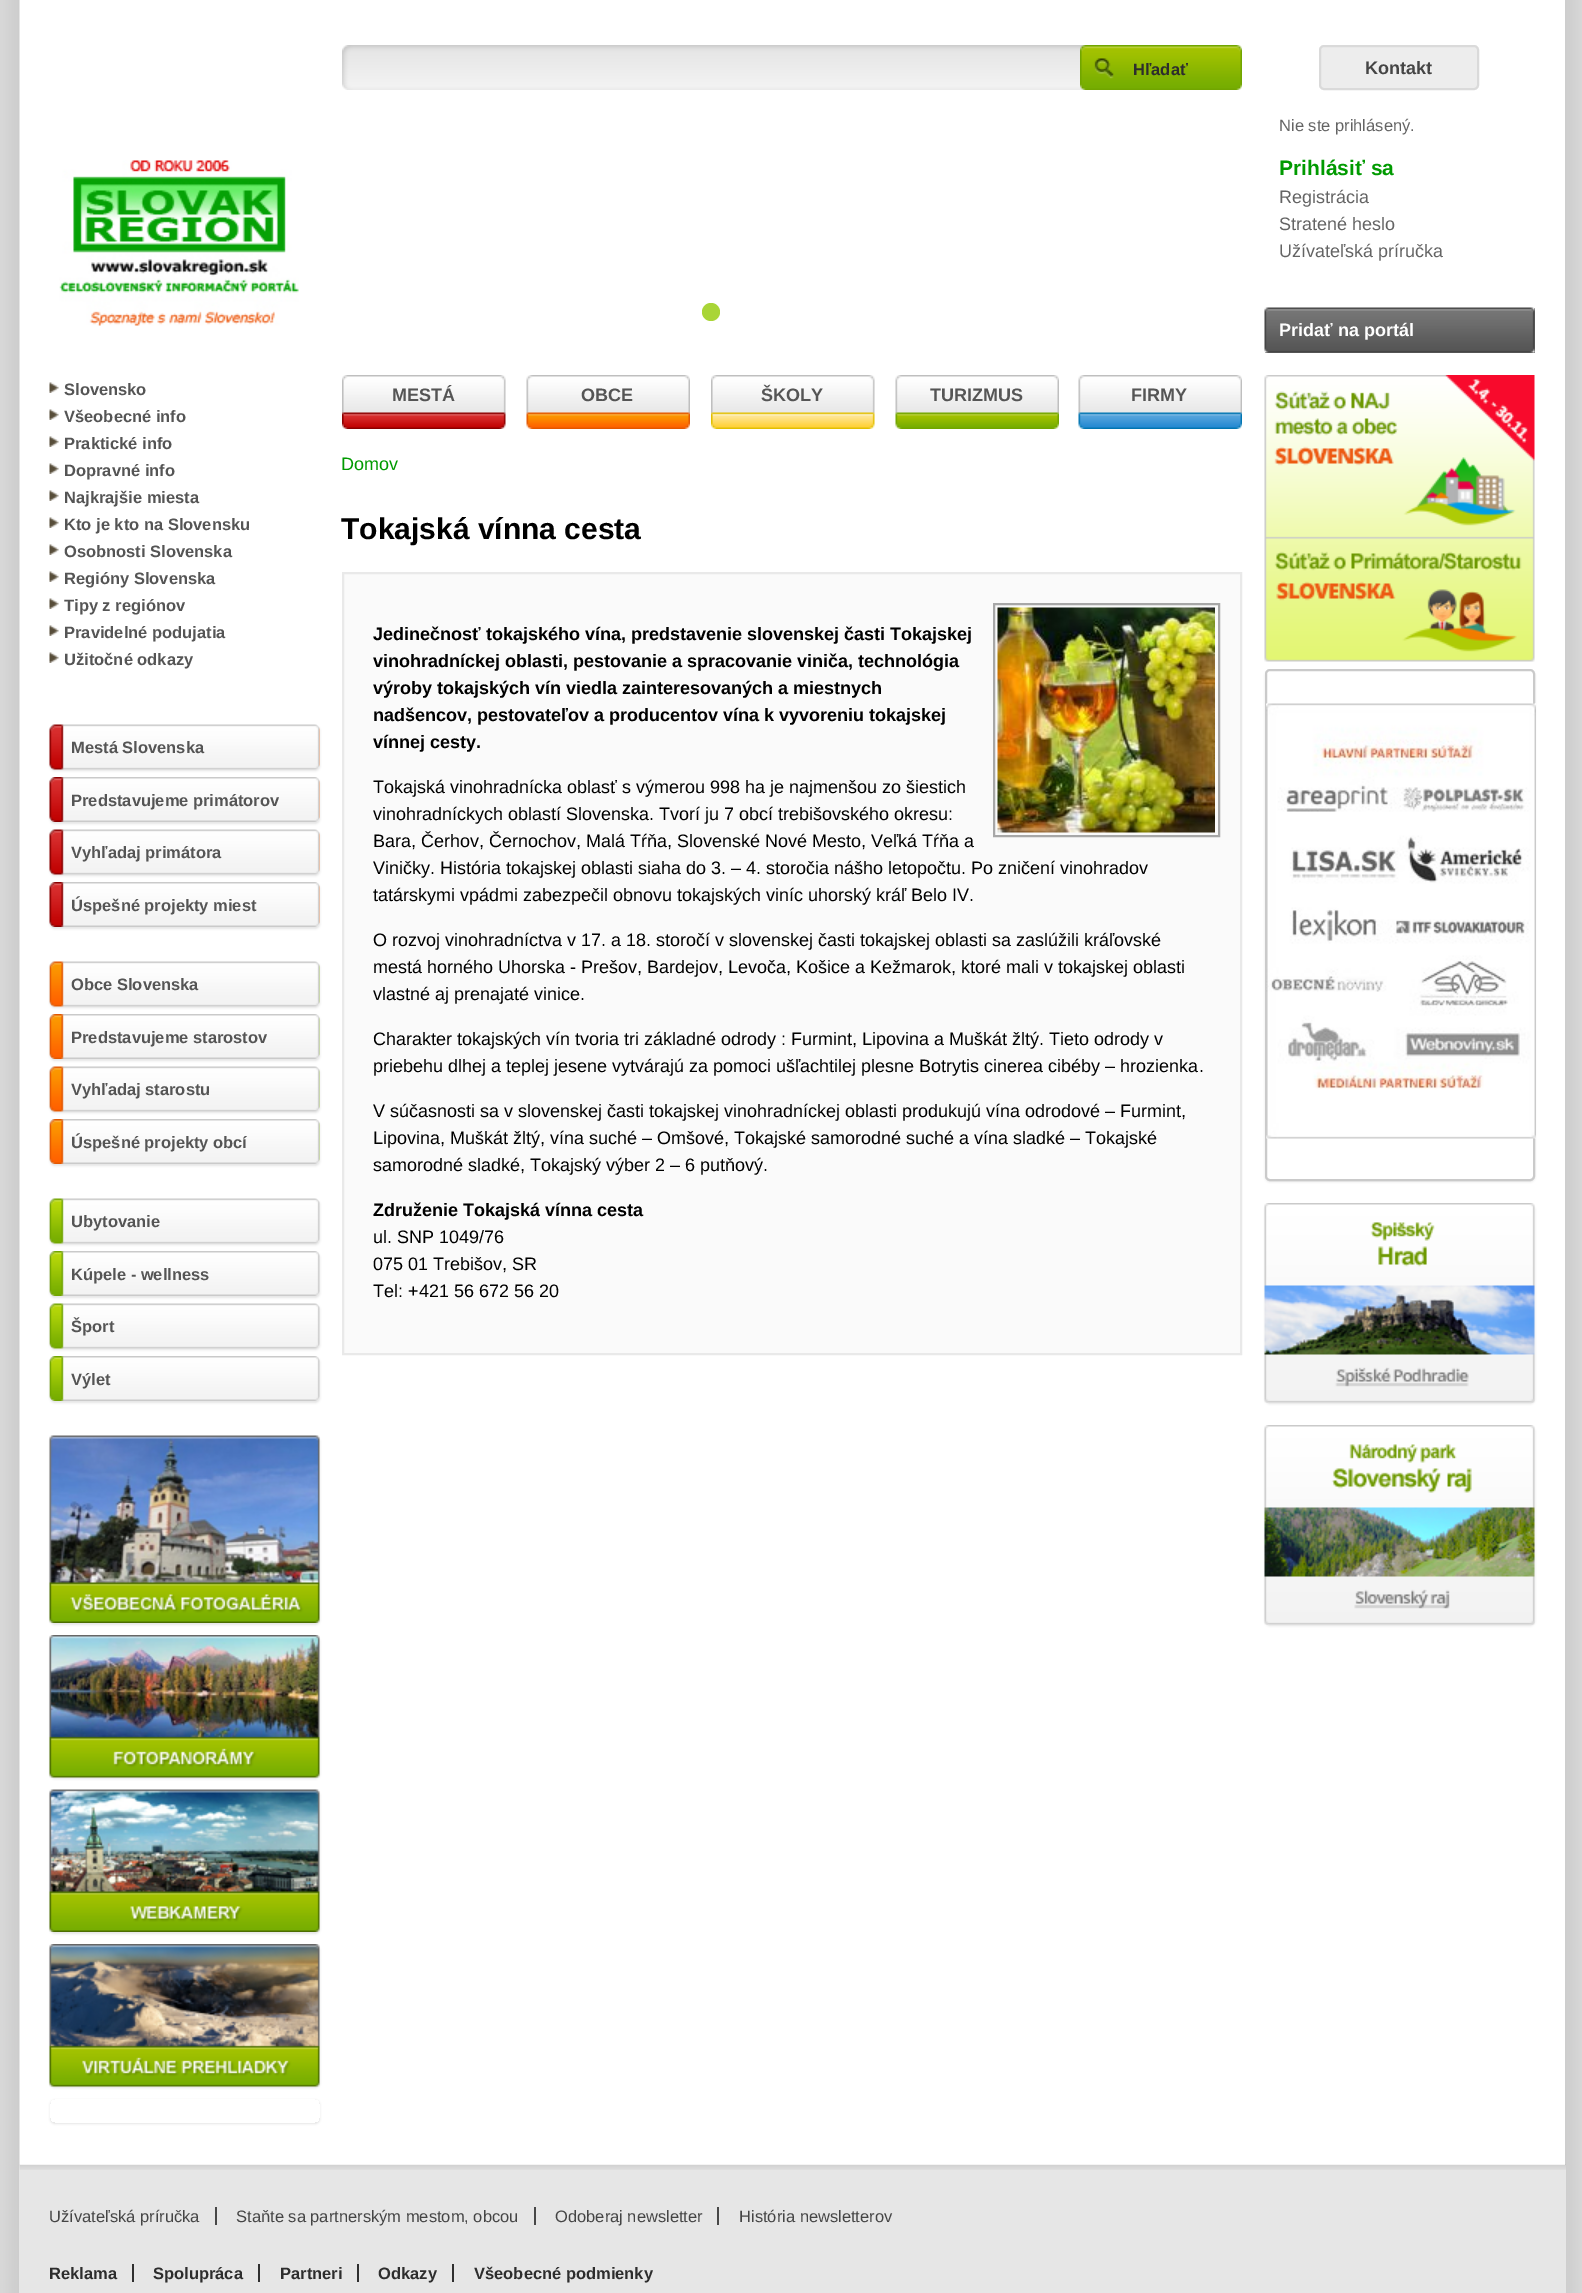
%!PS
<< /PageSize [1582 2293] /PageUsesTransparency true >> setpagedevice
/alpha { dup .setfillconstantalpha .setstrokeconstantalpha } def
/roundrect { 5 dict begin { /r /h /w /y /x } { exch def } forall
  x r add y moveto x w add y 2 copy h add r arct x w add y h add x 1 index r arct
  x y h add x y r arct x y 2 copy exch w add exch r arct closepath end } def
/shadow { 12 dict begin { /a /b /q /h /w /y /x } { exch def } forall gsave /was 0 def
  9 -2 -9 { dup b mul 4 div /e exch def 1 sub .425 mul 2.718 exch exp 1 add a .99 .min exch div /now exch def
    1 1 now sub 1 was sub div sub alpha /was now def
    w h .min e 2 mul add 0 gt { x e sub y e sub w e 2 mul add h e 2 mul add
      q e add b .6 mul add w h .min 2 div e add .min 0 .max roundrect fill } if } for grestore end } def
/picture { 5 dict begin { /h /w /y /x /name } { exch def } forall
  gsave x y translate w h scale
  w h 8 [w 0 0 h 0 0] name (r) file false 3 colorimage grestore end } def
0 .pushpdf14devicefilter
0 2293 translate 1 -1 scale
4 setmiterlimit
1 setgray
0 0 1582 2293 rectfill
(img1.rgb) 0 0 1582 2293 picture
1564 0 1 2165 rectfill
(img2.rgb) 342 45 738 45 picture
(img3.rgb) 1080 45 162 45 picture
/LiberationSans-Bold [16.5 0 0 -16.5 0 0] selectfont
0.176 setgray
1133 75 moveto (Hľadať) show
0.663 0.835 0.216 setrgbcolor
newpath 711 312 9 0 360 arc closepath fill
0.929 setgray
1320 46 158 43 4 roundrect gsave fill grestore
0.855 setgray
2 setlinewidth
stroke
/LiberationSans-Bold [18 0 0 -18 0 0] selectfont
0.271 setgray
1365 74 moveto (Kontakt) show
/LiberationSans-Regular [16.5 0 0 -16.5 0 0] selectfont
0.392 setgray
1279 131 moveto (Nie ste prihlásený.) show
/LiberationSans-Bold [21 0 0 -21 0 0] selectfont
0 0.604 0 setrgbcolor
1279 175 moveto (Prihlásiť sa) show
/LiberationSans-Regular [18 0 0 -18 0 0] selectfont
0.392 setgray
1279 203 moveto (Registrácia) show
1279 230 moveto (Stratené heslo) show
1279 257 moveto (Užívateľská príručka) show
0.4 setgray
1265 308 270 45 rectfill
(img4.rgb) 1264 307 271 46 picture
/LiberationSans-Bold [18 0 0 -18 0 0] selectfont
1 setgray
1279 336 moveto (Pridať na portál) show
(img5.rgb) 59 160 240 166 picture
(img6.rgb) 342 375 164 54 picture
0.333 setgray
392 401 moveto (MESTÁ) show
(img7.rgb) 526 375 164 54 picture
581 401 moveto (OBCE) show
(img8.rgb) 711 375 164 54 picture
761 401 moveto (ŠKOLY) show
(img9.rgb) 895 375 164 54 picture
930 401 moveto (TURIZMUS) show
(img10.rgb) 1078 375 164 54 picture
1131 401 moveto (FIRMY) show
(img11.rgb) 49 382 10 11 picture
/LiberationSans-Bold [16.5 0 0 -16.5 0 0] selectfont
64 395 moveto (Slovensko) show
(img11.rgb) 49 409 10 11 picture
64 422 moveto (Všeobecné info) show
(img11.rgb) 49 436 10 11 picture
64 449 moveto (Praktické info) show
(img11.rgb) 49 463 10 11 picture
64 476 moveto (Dopravné info) show
(img11.rgb) 49 490 10 11 picture
64 503 moveto (Najkrajšie miesta) show
(img11.rgb) 49 517 10 11 picture
64 530 moveto (Kto je kto na Slovensku) show
(img11.rgb) 49 544 10 11 picture
64 557 moveto (Osobnosti Slovenska) show
(img11.rgb) 49 571 10 11 picture
64 584 moveto (Regióny Slovenska) show
(img11.rgb) 49 598 10 11 picture
64 611 moveto (Tipy z regiónov) show
(img11.rgb) 49 625 10 11 picture
64 638 moveto (Pravidelné podujatia) show
(img11.rgb) 49 652 10 11 picture
64 665 moveto (Užitočné odkazy) show
0 setgray
50 726 270 45 5 1 0.1 shadow
(img12.rgb) 49 724 271 46 picture
0.333 setgray
71 753 moveto (Mestá Slovenska) show
0 setgray
50 779 270 45 5 1 0.1 shadow
(img13.rgb) 49 777 271 45 picture
0.333 setgray
71 806 moveto (Predstavujeme primátorov) show
0 setgray
50 831 270 45 5 1 0.1 shadow
(img12.rgb) 49 829 271 46 picture
0.333 setgray
71 858 moveto (Vyhľadaj primátora) show
0 setgray
50 884 270 45 5 1 0.1 shadow
(img13.rgb) 49 882 271 45 picture
0.333 setgray
71 911 moveto (Úspešné projekty miest) show
0 setgray
50 963 270 45 5 1 0.1 shadow
(img14.rgb) 49 961 271 46 picture
0.333 setgray
71 990 moveto (Obce Slovenska) show
0 setgray
50 1016 270 45 5 1 0.1 shadow
(img15.rgb) 49 1014 271 45 picture
0.333 setgray
71 1043 moveto (Predstavujeme starostov) show
0 setgray
50 1068 270 45 5 1 0.1 shadow
(img14.rgb) 49 1066 271 46 picture
0.333 setgray
71 1095 moveto (Vyhľadaj starostu) show
0 setgray
50 1121 270 45 5 1 0.1 shadow
(img16.rgb) 49 1119 271 45 picture
0.333 setgray
71 1148 moveto (Úspešné projekty obcí) show
0 setgray
50 1200 270 45 5 1 0.1 shadow
(img17.rgb) 49 1198 271 46 picture
0.333 setgray
71 1227 moveto (Ubytovanie) show
0 setgray
50 1253 270 45 5 1 0.1 shadow
(img18.rgb) 49 1251 271 45 picture
0.333 setgray
71 1280 moveto (Kúpele - wellness) show
0 setgray
50 1305 270 45 5 1 0.1 shadow
(img17.rgb) 49 1303 271 46 picture
0.333 setgray
71 1332 moveto (Šport) show
0 setgray
50 1358 270 45 5 1 0.1 shadow
(img18.rgb) 49 1356 271 45 picture
0.333 setgray
71 1385 moveto (Výlet) show
0 setgray
50 1437 270 188 5 1 0.1 shadow
(img19.rgb) 49 1435 271 188 picture
50 1637 270 142 5 1 0.1 shadow
(img20.rgb) 49 1635 271 143 picture
50 1791 270 143 5 1 0.1 shadow
(img21.rgb) 49 1789 271 143 picture
50 1946 270 142 5 1 0.1 shadow
(img22.rgb) 49 1944 271 143 picture
gsave
newpath 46 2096 moveto 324 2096 lineto 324 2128 lineto 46 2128 lineto closepath 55 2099 moveto 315 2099 lineto 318 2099 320 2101 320 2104 curveto 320 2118 lineto 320 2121 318 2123 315 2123 curveto 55 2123 lineto 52 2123 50 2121 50 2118 curveto 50 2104 lineto 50 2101 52 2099 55 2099 curveto closepath eoclip newpath
50 2100 270 24 5 1 0.1 shadow
grestore
/LiberationSans-Regular [18 0 0 -18 0 0] selectfont
0 0.604 0 setrgbcolor
341 470 moveto (Domov) show
/LiberationSans-Bold [30 0 0 -30 0 0] selectfont
0 setgray
341 539 moveto (Tokajská vínna cesta) show
0.98 setgray
newpath 343 573 moveto 1241 573 lineto 1241 1354 lineto 343 1354 lineto closepath gsave fill grestore
0.914 setgray
stroke
/LiberationSans-Bold [18 0 0 -18 0 0] selectfont
0 setgray
373 640 moveto (Jedinečnosť tokajského vína, predstavenie slovenskej časti Tokajskej) show
373 667 moveto (vinohradníckej oblasti, pestovanie a spracovanie viniča, technológia) show
373 694 moveto (výroby tokajských vín viedla zainteresovaných a miestnych) show
373 721 moveto (nadšencov, pestovateľov a producentov vína k vyvoreniu tokajskej) show
373 748 moveto (vínnej cesty.) show
0.655 setgray
994 604 225 232 rectstroke
(img23.rgb) 997 607 218 226 picture
/LiberationSans-Regular [18 0 0 -18 0 0] selectfont
0 setgray
373 793 moveto (Tokajská vinohradnícka oblasť s výmerou 998 ha je najmenšou zo šiestich) show
373 820 moveto (vinohradníckych oblastí Slovenska. Tvorí ju 7 obcí trebišovského okresu:) show
373 847 moveto (Bara, Čerhov, Černochov, Malá Tŕňa, Slovenské Nové Mesto, Veľká Tŕňa a) show
373 874 moveto (Viničky. História tokajskej oblasti siaha do 3. – 4. storočia nášho letopočtu. Po zničení vinohradov) show
373 901 moveto (tatárskymi vpádmi zabezpečil obnovu tokajských viníc uhorský kráľ Belo IV.) show
373 946 moveto (O rozvoj vinohradníctva v 17. a 18. storočí v slovenskej časti tokajskej oblasti sa zaslúžili kráľovské) show
373 973 moveto (mestá horného Uhorska - Prešov, Bardejov, Levoča, Košice a Kežmarok, ktoré mali v tokajskej oblasti) show
373 1000 moveto (vlastné aj prenajaté vinice.) show
373 1045 moveto (Charakter tokajských vín tvoria tri základné odrody : Furmint, Lipovina a Muškát žltý. Tieto odrody v) show
373 1072 moveto (priebehu dlhej a teplej jesene vytvárajú za pomoci ušľachtilej plesne Botrytis cinerea cibéby – hrozienka.) show
373 1117 moveto (V súčasnosti sa v slovenskej časti tokajskej vinohradníckej oblasti produkujú vína odrodové – Furmint,) show
373 1144 moveto (Lipovina, Muškát žltý, vína suché – Omšové, Tokajské samorodné suché a vína sladké – Tokajské) show
373 1171 moveto (samorodné sladké, Tokajský výber 2 – 6 putňový.) show
/LiberationSans-Bold [18 0 0 -18 0 0] selectfont
373 1216 moveto (Združenie Tokajská vínna cesta) show
/LiberationSans-Regular [18 0 0 -18 0 0] selectfont
373 1243 moveto (ul. SNP 1049/76) show
373 1270 moveto (075 01 Trebišov, SR) show
373 1297 moveto (Tel: +421 56 672 56 20) show
(img24.rgb) 1264 375 271 287 picture
gsave
newpath 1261 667 moveto 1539 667 lineto 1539 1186 lineto 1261 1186 lineto closepath 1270 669 moveto 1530 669 lineto 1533 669 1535 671 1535 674 curveto 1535 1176 lineto 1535 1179 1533 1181 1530 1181 curveto 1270 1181 lineto 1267 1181 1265 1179 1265 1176 curveto 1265 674 lineto 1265 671 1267 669 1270 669 curveto closepath eoclip newpath
1265 671 270 511 5 1 0.1 shadow
grestore
0.792 setgray
1266 670 268 510 4 roundrect stroke
(img25.rgb) 1266 703 270 436 picture
0 setgray
1265 1205 270 199 5 1 0.1 shadow
(img26.rgb) 1264 1203 271 200 picture
1265 1427 270 199 5 1 0.1 shadow
(img27.rgb) 1264 1425 271 200 picture
0.902 setgray
20 2165 1546 128 rectfill
(img28.rgb) 19 2164 1547 6 picture
/LiberationSans-Regular [16.5 0 0 -16.5 0 0] selectfont
0.271 setgray
49 2222 moveto (Užívateľská príručka) show
0.278 setgray
215 2207 2 18 rectfill
0.271 setgray
236 2222 moveto (Staňte sa partnerským mestom, obcou) show
0.278 setgray
534 2207 2 18 rectfill
0.271 setgray
555 2222 moveto (Odoberaj newsletter) show
0.278 setgray
717 2207 2 18 rectfill
0.271 setgray
739 2222 moveto (História newsletterov) show
/LiberationSans-Bold [16.5 0 0 -16.5 0 0] selectfont
0.176 setgray
49 2279 moveto (Reklama) show
0.184 setgray
132 2264 2 18 rectfill
0.176 setgray
153 2279 moveto (Spolupráca) show
0.184 setgray
258 2264 2 18 rectfill
0.176 setgray
280 2279 moveto (Partneri) show
0.184 setgray
357 2264 2 18 rectfill
0.176 setgray
378 2279 moveto (Odkazy) show
0.184 setgray
452 2264 2 18 rectfill
0.176 setgray
474 2279 moveto (Všeobecné podmienky) show
.poppdf14devicefilter showpage
